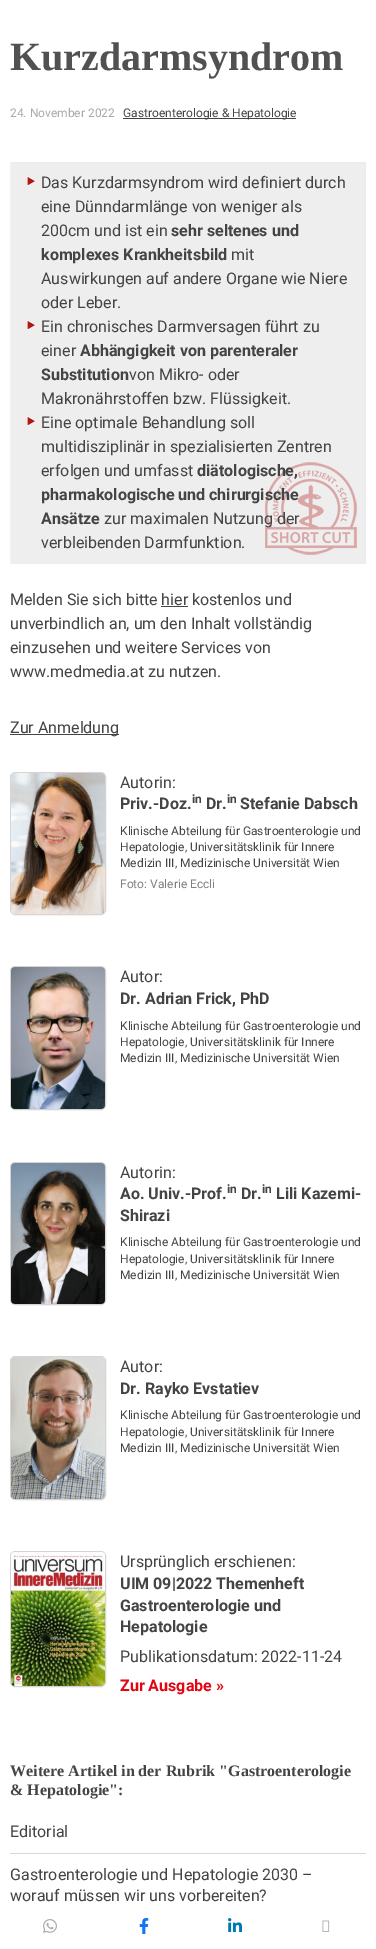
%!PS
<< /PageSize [376 1949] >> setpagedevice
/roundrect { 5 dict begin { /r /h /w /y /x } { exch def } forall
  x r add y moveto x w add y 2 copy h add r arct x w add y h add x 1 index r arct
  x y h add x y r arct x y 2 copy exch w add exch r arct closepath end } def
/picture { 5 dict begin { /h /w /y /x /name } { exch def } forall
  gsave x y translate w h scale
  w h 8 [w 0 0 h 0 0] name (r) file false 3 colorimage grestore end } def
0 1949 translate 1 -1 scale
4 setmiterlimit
1 setgray
0 0 376 1949 rectfill
/LiberationSerif-Bold [40 0 0 -40 0 0] selectfont
0.318 setgray
10 70 moveto (Kurzdarmsyndrom) show
/Roboto-Regular [12 0 0 -12 0 0] selectfont
0.667 setgray
10 117 moveto (24. November 2022) show
0.267 setgray
123 118 173 1 rectfill
123 117 moveto (Gastroenterologie & Hepatologie) show
(img1.rgb) 43 1919 14 14 picture
(img2.rgb) 139 1918 10 16 picture
(img3.rgb) 228 1918 14 14 picture
(img4.rgb) 322 1920 8 12 picture
0.933 setgray
11 163 354 400 rectfill
(img5.rgb) 265 462 92 93 picture
0.925 setgray
10 162 356 1 rectfill
365 162 1 402 rectfill
10 563 356 1 rectfill
0.949 setgray
10 162 1 402 rectfill
(img6.rgb) 27 176 8 10 picture
/Roboto-Regular [16 0 0 -16 0 0] selectfont
0.267 setgray
41 188 moveto (Das Kurzdarmsyndrom wird definiert durch) show
41 212 moveto (eine Dünndarmlänge von weniger als) show
41 236 moveto (200cm und ist ein) show
/Roboto-Bold [16 0 0 -16 0 0] selectfont
171 236 moveto (sehr seltenes und) show
41 260 moveto (komplexes Krankheitsbild) show
/Roboto-Regular [16 0 0 -16 0 0] selectfont
231 260 moveto (mit) show
41 284 moveto (Auswirkungen auf andere Organe wie Niere) show
41 308 moveto (oder Leber.) show
(img6.rgb) 27 320 8 10 picture
41 332 moveto (Ein chronisches Darmversagen führt zu) show
41 356 moveto (einer) show
/Roboto-Bold [16 0 0 -16 0 0] selectfont
80 356 moveto (Abhängigkeit von parenteraler) show
41 380 moveto (Substitution) show
/Roboto-Regular [16 0 0 -16 0 0] selectfont
129 380 moveto (von Mikro- oder) show
41 404 moveto (Makronährstoffen bzw. Flüssigkeit.) show
(img6.rgb) 27 416 8 10 picture
41 428 moveto (Eine optimale Behandlung soll) show
41 452 moveto (multidisziplinär in spezialisierten Zentren) show
41 476 moveto (erfolgen und umfasst) show
/Roboto-Bold [16 0 0 -16 0 0] selectfont
197 476 moveto (diätologische,) show
41 500 moveto (pharmakologische und chirurgische) show
41 524 moveto (Ansätze) show
/Roboto-Regular [16 0 0 -16 0 0] selectfont
104 524 moveto (zur maximalen Nutzung der) show
41 548 moveto (verbleibenden Darmfunktion.) show
10 605 moveto (Melden Sie sich bitte hier kostenlos und) show
161 606 27 1 rectfill
10 629 moveto (unverbindlich an, um den Inhalt vollständig) show
10 653 moveto (einzusehen und weitere Services von) show
10 677 moveto (www.medmedia.at zu nutzen.) show
10 734 109 1 rectfill
10 733 moveto (Zur Anmeldung) show
0.839 0.831 0.835 setrgbcolor
10.5 772.5 95 142 4.5 roundrect stroke
(img7.rgb) 11 773 94 141 picture
0.267 setgray
120 788 moveto (Autorin:) show
/Roboto-Bold [16 0 0 -16 0 0] selectfont
120 809 moveto (Priv.-Doz.) show
/Roboto-Bold [12 0 0 -12 0 0] selectfont
192 803 moveto (in) show
/Roboto-Bold [16 0 0 -16 0 0] selectfont
206 809 moveto (Dr.) show
/Roboto-Bold [12 0 0 -12 0 0] selectfont
227 803 moveto (in) show
/Roboto-Bold [16 0 0 -16 0 0] selectfont
240 809 moveto (Stefanie Dabsch) show
/Roboto-Regular [12 0 0 -12 0 0] selectfont
120 835 moveto (Klinische Abteilung für Gastroenterologie und) show
120 851 moveto (Hepatologie, Universitätsklinik für Innere) show
120 867 moveto (Medizin III, Medizinische Universität Wien) show
0.502 setgray
120 888 moveto (Foto: Valerie Eccli) show
0.839 0.831 0.835 setrgbcolor
10.5 966.5 95 143 4.5 roundrect stroke
(img8.rgb) 11 967 94 142 picture
/Roboto-Regular [16 0 0 -16 0 0] selectfont
0.267 setgray
120 982 moveto (Autor:) show
/Roboto-Bold [16 0 0 -16 0 0] selectfont
120 1004 moveto (Dr. Adrian Frick, PhD) show
/Roboto-Regular [12 0 0 -12 0 0] selectfont
120 1030 moveto (Klinische Abteilung für Gastroenterologie und) show
120 1046 moveto (Hepatologie, Universitätsklinik für Innere) show
120 1062 moveto (Medizin III, Medizinische Universität Wien) show
0.839 0.831 0.835 setrgbcolor
10.5 1162.5 95 142 4.5 roundrect stroke
(img9.rgb) 11 1163 94 141 picture
/Roboto-Regular [16 0 0 -16 0 0] selectfont
0.267 setgray
120 1178 moveto (Autorin:) show
/Roboto-Bold [16 0 0 -16 0 0] selectfont
120 1199 moveto (Ao. Univ.-Prof.) show
/Roboto-Bold [12 0 0 -12 0 0] selectfont
227 1193 moveto (in) show
/Roboto-Bold [16 0 0 -16 0 0] selectfont
241 1199 moveto (Dr.) show
/Roboto-Bold [12 0 0 -12 0 0] selectfont
262 1193 moveto (in) show
/Roboto-Bold [16 0 0 -16 0 0] selectfont
276 1199 moveto (Lili Kazemi-) show
120 1221 moveto (Shirazi) show
/Roboto-Regular [12 0 0 -12 0 0] selectfont
120 1246 moveto (Klinische Abteilung für Gastroenterologie und) show
120 1263 moveto (Hepatologie, Universitätsklinik für Innere) show
120 1279 moveto (Medizin III, Medizinische Universität Wien) show
0.839 0.831 0.835 setrgbcolor
10.5 1356.5 95 143 4.5 roundrect stroke
(img10.rgb) 11 1357 94 142 picture
/Roboto-Regular [16 0 0 -16 0 0] selectfont
0.267 setgray
120 1372 moveto (Autor:) show
/Roboto-Bold [16 0 0 -16 0 0] selectfont
120 1394 moveto (Dr. Rayko Evstatiev) show
/Roboto-Regular [12 0 0 -12 0 0] selectfont
120 1419 moveto (Klinische Abteilung für Gastroenterologie und) show
120 1436 moveto (Hepatologie, Universitätsklinik für Innere) show
120 1452 moveto (Medizin III, Medizinische Universität Wien) show
0.839 0.831 0.835 setrgbcolor
10.5 1551.5 95 135 4.5 roundrect stroke
(img11.rgb) 11 1552 94 134 picture
/Roboto-Regular [16 0 0 -16 0 0] selectfont
0.267 setgray
120 1567 moveto (Ursprünglich erschienen:) show
/Roboto-Bold [16 0 0 -16 0 0] selectfont
120 1589 moveto (UIM 09|2022 Themenheft) show
120 1611 moveto (Gastroenterologie und) show
120 1632 moveto (Hepatologie) show
/Roboto-Regular [16 0 0 -16 0 0] selectfont
120 1662 moveto (Publikationsdatum: 2022-11-24) show
/Roboto-Bold [16 0 0 -16 0 0] selectfont
0.886 0.024 0.075 setrgbcolor
120 1691 moveto (Zur Ausgabe ») show
/LiberationSerif-Bold [16 0 0 -16 0 0] selectfont
0.267 setgray
10 1776 moveto (Weitere Artikel in der Rubrik "Gastroenterologie) show
10 1795 moveto (& Hepatologie":) show
0.847 setgray
10 1853 356 1 rectfill
/Roboto-Regular [16 0 0 -16 0 0] selectfont
0.267 setgray
10 1837 moveto (Editorial) show
10 1880 moveto (Gastroenterologie und Hepatologie 2030 –) show
10 1901 moveto (worauf müssen wir uns vorbereiten?) show
showpage
